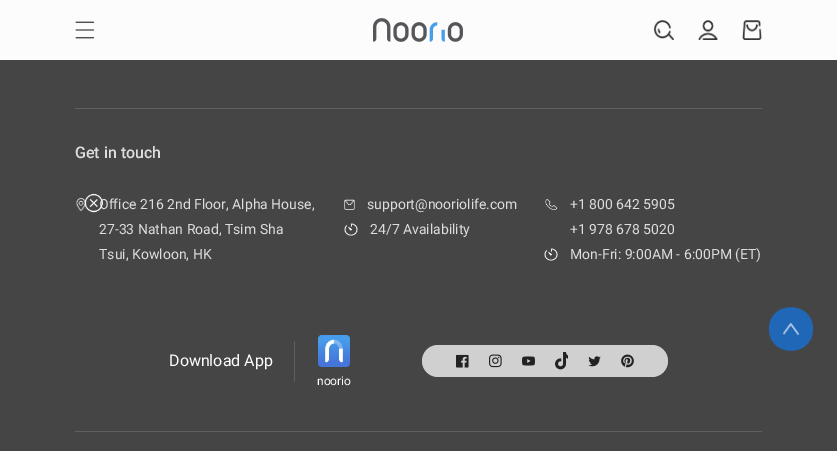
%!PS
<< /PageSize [837 451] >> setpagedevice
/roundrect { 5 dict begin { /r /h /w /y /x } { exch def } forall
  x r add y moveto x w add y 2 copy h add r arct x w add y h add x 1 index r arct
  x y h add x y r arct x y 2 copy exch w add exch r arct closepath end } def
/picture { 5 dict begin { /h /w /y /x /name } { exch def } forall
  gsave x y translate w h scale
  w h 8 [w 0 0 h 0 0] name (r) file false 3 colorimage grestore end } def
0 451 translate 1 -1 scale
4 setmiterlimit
0.271 setgray
0 0 837 451 rectfill
0.988 setgray
0 0 837 60 rectfill
(img1.rgb) 75 21 20 18 picture
(img2.rgb) 373 18 90 24 picture
(img3.rgb) 654 20 20 20 picture
(img4.rgb) 698 20 20 20 picture
(img5.rgb) 742 20 20 20 picture
0.373 setgray
75 108 687 1 rectfill
/Roboto-Medium [16 0 0 -16 0 0] selectfont
0.867 setgray
75 158 moveto (Get in touch) show
(img6.rgb) 76 198 11 13 picture
/Roboto-Regular [14 0 0 -14 0 0] selectfont
99 209 moveto (Office 216 2nd Floor, Alpha House,) show
99 234 moveto (27-33 Nathan Road, Tsim Sha) show
99 259 moveto (Tsui, Kowloon, HK) show
(img7.rgb) 344 199 11 11 picture
367 209 moveto (support@nooriolife.com) show
(img8.rgb) 344 223 14 13 picture
370 234 moveto (24/7 Availability) show
(img9.rgb) 545 199 13 11 picture
570 209 moveto (+1 800 642 5905) show
570 234 moveto (+1 978 678 5020) show
(img8.rgb) 544 248 14 13 picture
570 259 moveto (Mon-Fri: 9:00AM - 6:00PM \(ET\)) show
0.373 setgray
75 431 687 1 rectfill
294 341 1 41 rectfill
/Roboto-Regular [16 0 0 -16 0 0] selectfont
0.996 setgray
169 366 moveto (Download App) show
(img10.rgb) 318 335 32 32 picture
/Roboto-Regular [12 0 0 -12 0 0] selectfont
317 385 moveto (noorio) show
0.816 setgray
422 345 246 32 16 roundrect fill
(img11.rgb) 456 354 13 14 picture
(img12.rgb) 489 354 13 14 picture
(img13.rgb) 522 356 13 10 picture
(img14.rgb) 555 352 13 18 picture
(img15.rgb) 588 356 13 11 picture
(img16.rgb) 621 354 13 14 picture
(img17.rgb) 84 193 19 20 picture
0.129 0.404 0.722 setrgbcolor
newpath 769 329 moveto 769 300 813 300 813 329 curveto 813 358 769 358 769 329 curveto closepath fill
(img18.rgb) 783 323 16 12 picture
showpage
